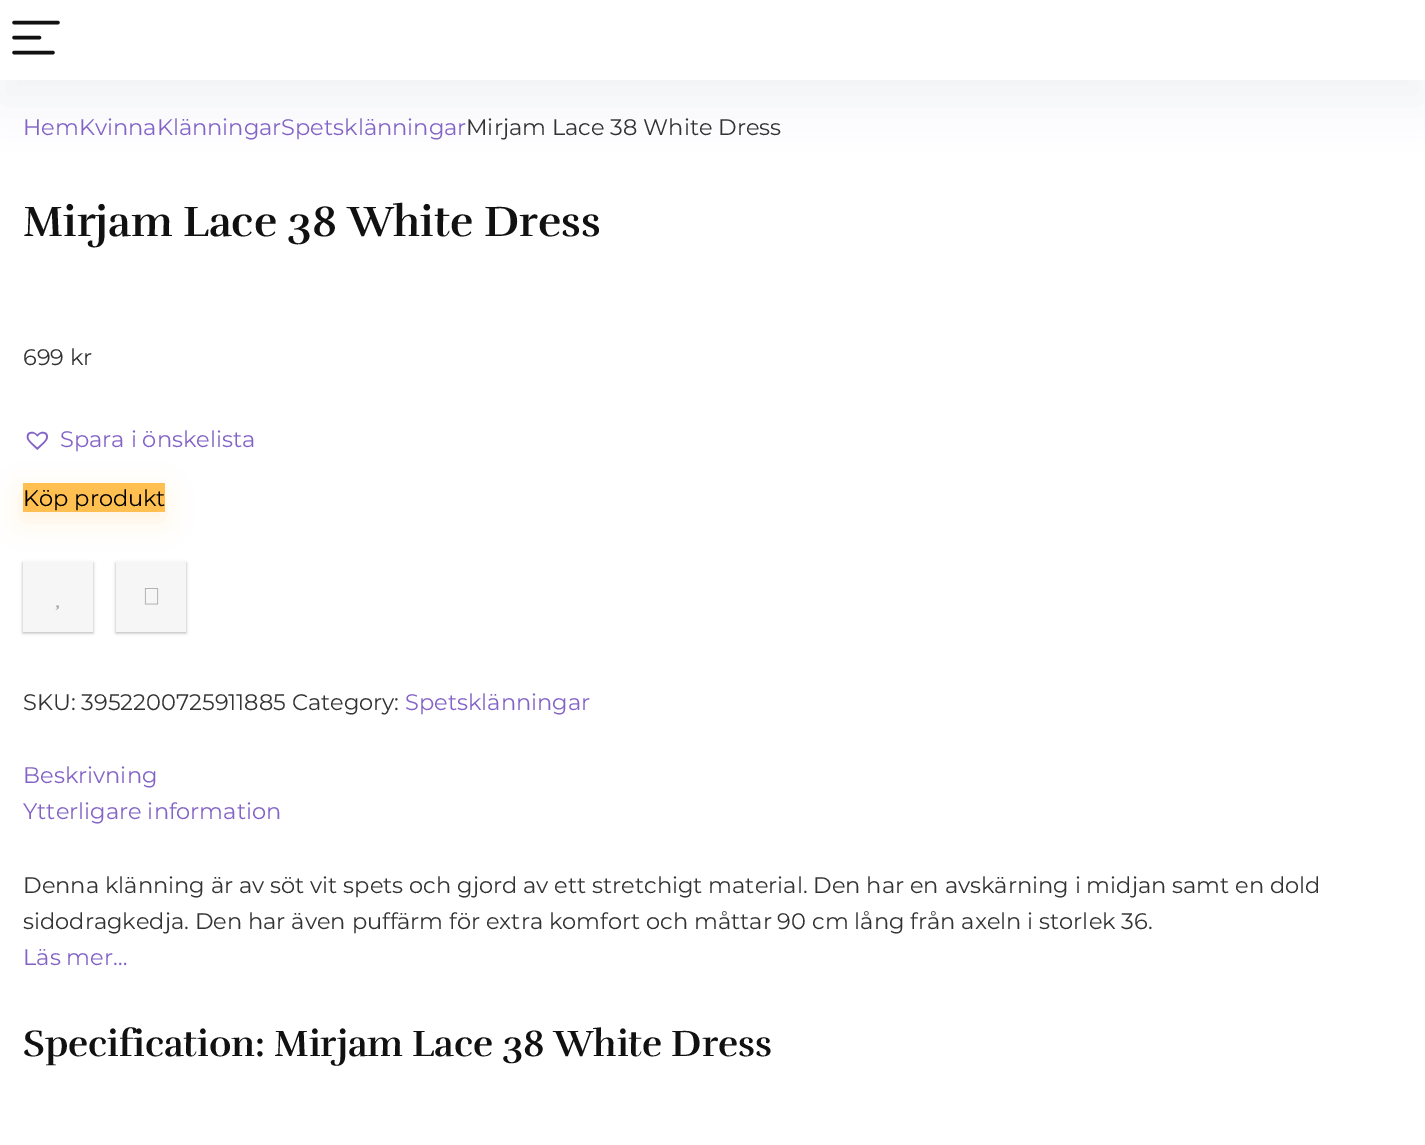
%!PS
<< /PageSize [1425 1145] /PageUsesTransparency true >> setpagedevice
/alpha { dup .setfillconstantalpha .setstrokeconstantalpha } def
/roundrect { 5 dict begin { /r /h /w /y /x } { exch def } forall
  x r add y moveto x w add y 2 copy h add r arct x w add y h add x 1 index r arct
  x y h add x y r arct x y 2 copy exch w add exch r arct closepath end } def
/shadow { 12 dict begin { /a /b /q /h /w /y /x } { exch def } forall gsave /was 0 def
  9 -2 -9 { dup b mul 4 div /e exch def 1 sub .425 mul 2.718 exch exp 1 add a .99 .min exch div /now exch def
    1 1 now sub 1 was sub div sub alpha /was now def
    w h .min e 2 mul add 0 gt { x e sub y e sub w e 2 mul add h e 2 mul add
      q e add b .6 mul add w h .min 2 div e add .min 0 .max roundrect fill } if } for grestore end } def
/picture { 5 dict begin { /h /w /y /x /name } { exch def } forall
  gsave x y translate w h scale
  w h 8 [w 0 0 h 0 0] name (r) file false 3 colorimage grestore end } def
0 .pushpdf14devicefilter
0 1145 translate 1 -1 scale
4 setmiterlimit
1 setgray
0 0 1425 1145 rectfill
gsave
newpath 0 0 moveto 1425 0 lineto 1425 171 lineto 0 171 lineto closepath 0 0 moveto 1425 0 lineto 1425 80 lineto 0 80 lineto closepath eoclip newpath
0.467 0.482 0.573 setrgbcolor
0 23 1425 79 0 22.5 0.1 shadow
grestore
0.067 setgray
3.4 setlinewidth
1 setlinecap
newpath 14 22.5 moveto 58 22.5 lineto 14 37.5 moveto 39.5 37.5 lineto 14 52.5 moveto 53 52.5 lineto stroke
/Montserrat-Thin [22.5 0 0 -22.5 0 0] selectfont
0.514 0.392 0.776 setrgbcolor
23 135 moveto (HemKvinnaKlänningarSpetsklänningar) show
0.2 setgray
466 135 moveto (Mirjam Lace 38 White Dress) show
/Rufina-Bold [43.5 0 0 -43.5 0 0] selectfont
0.067 setgray
23 236 moveto (Mirjam Lace 38 White Dress) show
/Montserrat-Thin [22.5 0 0 -22.5 0 0] selectfont
0.2 setgray
23 365 moveto (699 kr) show
0 setgray
23 563 70 70 0 1.5 0.08 shadow
0.235 0.251 0.263 setrgbcolor
23 563 70 70 0 1.5 0.3 shadow
0.965 setgray
23 561 70 71 rectfill
0 setgray
116 563 70 70 0 1.5 0.08 shadow
0.235 0.251 0.263 setrgbcolor
116 563 70 70 0 1.5 0.3 shadow
0.965 setgray
116 561 70 71 rectfill
1 0.749 0.318 setrgbcolor
21 492 143 29 0 14 0.2 shadow
(img1.rgb) 26 431 22 19 picture
0.514 0.392 0.776 setrgbcolor
60 447 moveto (Spara i önskelista) show
1 0.749 0.318 setrgbcolor
23 483 142 29 rectfill
0 setgray
23 506 moveto (Köp produkt) show
(img2.rgb) 55 605 4 5 picture
(img3.rgb) 144 588 15 17 picture
0.2 setgray
23 710 moveto (SKU: 3952200725911885 Category:) show
0.514 0.392 0.776 setrgbcolor
405 710 moveto (Spetsklänningar) show
23 783 moveto (Beskrivning) show
23 819 moveto (Ytterligare information) show
0.2 setgray
23 893 moveto (Denna klänning är av söt vit spets och gjord av ett stretchigt material. Den har en avskärning i midjan samt en dold) show
23 929 moveto (sidodragkedja. Den har även puffärm för extra komfort och måttar 90 cm lång från axeln i storlek 36.) show
0.514 0.392 0.776 setrgbcolor
23 965 moveto (Läs mer…) show
/Rufina-Bold [37.5 0 0 -37.5 0 0] selectfont
0.067 setgray
23 1056 moveto (Specification: Mirjam Lace 38 White Dress) show
.poppdf14devicefilter showpage
